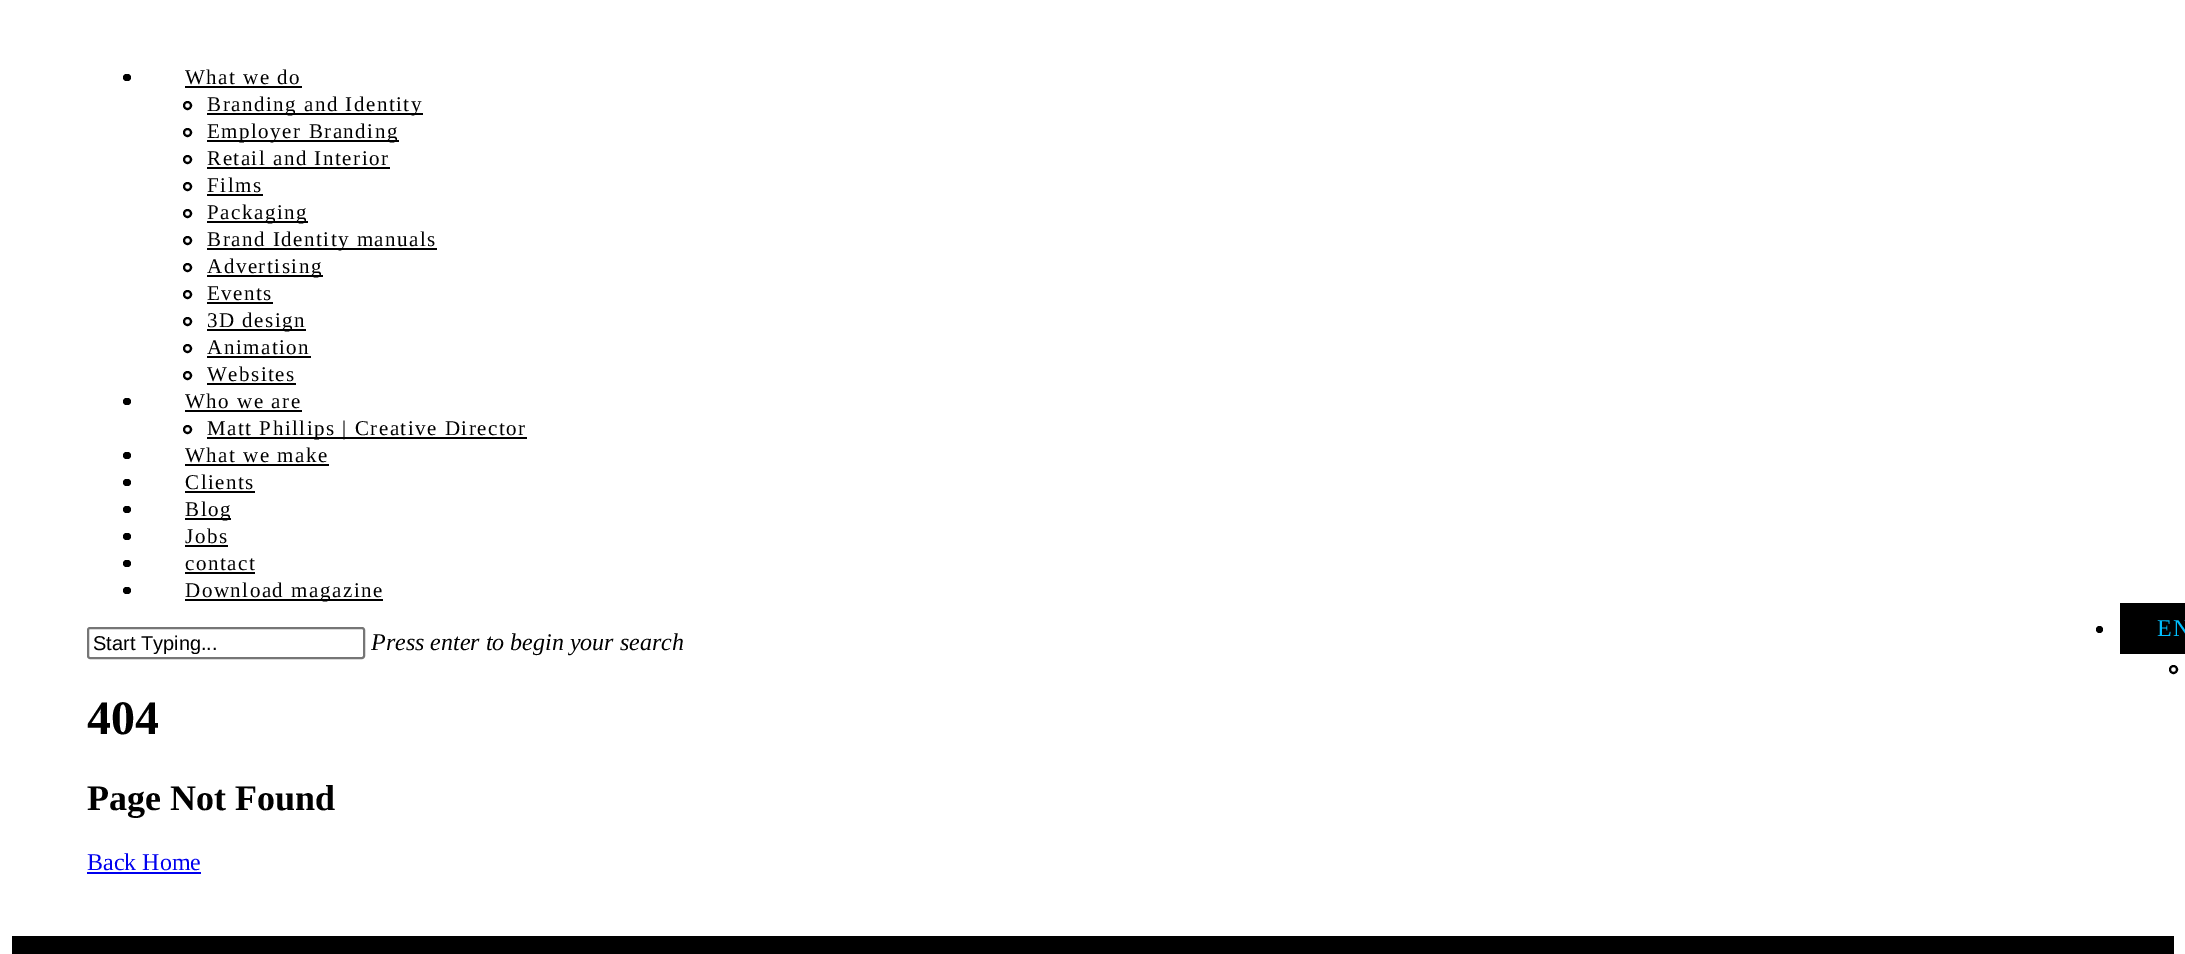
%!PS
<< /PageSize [2185 954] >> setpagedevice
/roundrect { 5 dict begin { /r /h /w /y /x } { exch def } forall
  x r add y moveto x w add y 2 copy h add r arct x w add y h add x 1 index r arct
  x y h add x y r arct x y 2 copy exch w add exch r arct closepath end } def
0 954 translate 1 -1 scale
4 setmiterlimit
1 setgray
0 0 2185 954 rectfill
0 setgray
123 74 8 7 3.5 roundrect fill
/LiberationSerif-Regular [21 0 0 -21 0 0] selectfont
185 84 moveto 1.5 0 (What we do) ashow
185 86 117 2 rectfill
2 setlinewidth
newpath 187.5 105.5 3.5 0 360 arc closepath stroke
207 113 216 2 rectfill
207 111 moveto 1.5 0 (Branding and Identity) ashow
newpath 187.5 132.5 3.5 0 360 arc closepath stroke
207 140 192 2 rectfill
207 138 moveto 1.5 0 (Employer Branding) ashow
newpath 187.5 159.5 3.5 0 360 arc closepath stroke
207 165 moveto 1.5 0 (Retail and Interior) ashow
207 167 183 2 rectfill
newpath 187.5 186.5 3.5 0 360 arc closepath stroke
207 192 moveto 1.5 0 (Films) ashow
207 194 56 2 rectfill
newpath 187.5 213.5 3.5 0 360 arc closepath stroke
207 221 101 2 rectfill
207 219 moveto 1.5 0 (Packaging) ashow
newpath 187.5 240.5 3.5 0 360 arc closepath stroke
207 248 230 2 rectfill
207 246 moveto 1.5 0 (Brand Identity manuals) ashow
newpath 187.5 267.5 3.5 0 360 arc closepath stroke
207 275 116 2 rectfill
207 273 moveto 1.5 0 (Advertising) ashow
newpath 187.5 294.5 3.5 0 360 arc closepath stroke
207 300 moveto 1.5 0 (Events) ashow
207 302 66 2 rectfill
newpath 187.5 321.5 3.5 0 360 arc closepath stroke
207 329 99 2 rectfill
207 327 moveto 1.5 0 (3D design) ashow
newpath 187.5 348.5 3.5 0 360 arc closepath stroke
207 354 moveto 1.5 0 (Animation) ashow
207 356 104 2 rectfill
newpath 187.5 375.5 3.5 0 360 arc closepath stroke
207 381 moveto 1.5 0 (Websites) ashow
207 383 89 2 rectfill
123 398 8 7 3.5 roundrect fill
185 408 moveto 1.5 0 (Who we are) ashow
185 410 117 2 rectfill
newpath 187.5 429.5 3.5 0 360 arc closepath stroke
207 437 320 2 rectfill
207 435 moveto 1.5 0 (Matt Phillips | Creative Director) ashow
123 452 8 7 3.5 roundrect fill
185 462 moveto 1.5 0 (What we make) ashow
185 464 144 2 rectfill
123 479 8 7 3.5 roundrect fill
185 489 moveto 1.5 0 (Clients) ashow
185 491 70 2 rectfill
123 506 8 7 3.5 roundrect fill
185 518 46 2 rectfill
185 516 moveto 1.5 0 (Blog) ashow
123 533 8 7 3.5 roundrect fill
185 543 moveto 1.5 0 (Jobs) ashow
185 545 43 2 rectfill
123 560 8 7 3.5 roundrect fill
185 570 moveto 1.5 0 (contact) ashow
185 572 70 2 rectfill
123 587 8 7 3.5 roundrect fill
185 599 198 2 rectfill
185 597 moveto 1.5 0 (Download magazine) ashow
2120 603 65 51 rectfill
newpath 2099.5 629.5 3.5 0 360 arc closepath fill
/LiberationSerif-Regular [24 0 0 -24 0 0] selectfont
0 0.749 1 setrgbcolor
2157 636 moveto 1.5 0 (EN) ashow
0 setgray
newpath 2173.5 669.5 3.5 0 360 arc closepath stroke
0.463 setgray
88 628 276 30 2 roundrect stroke
gsave
93 632 266 22 rectclip
/LiberationSans-Regular [20 0 0 -20 0 0] selectfont
0 setgray
93 650 moveto (Start Typing...) show
grestore
/LiberationSerif-Italic [24 0 0 -24 0 0] selectfont
0 setgray
371 650 moveto (Press enter to begin your search) show
/LiberationSerif-Bold [48 0 0 -48 0 0] selectfont
87 734 moveto (404) show
/LiberationSerif-Bold [36 0 0 -36 0 0] selectfont
87 810 moveto (Page Not Found) show
/LiberationSerif-Regular [24 0 0 -24 0 0] selectfont
0 0 0.933 setrgbcolor
87 870 moveto (Back Home) show
87 872 114 2 rectfill
0 setgray
12 936 2162 18 rectfill
showpage
